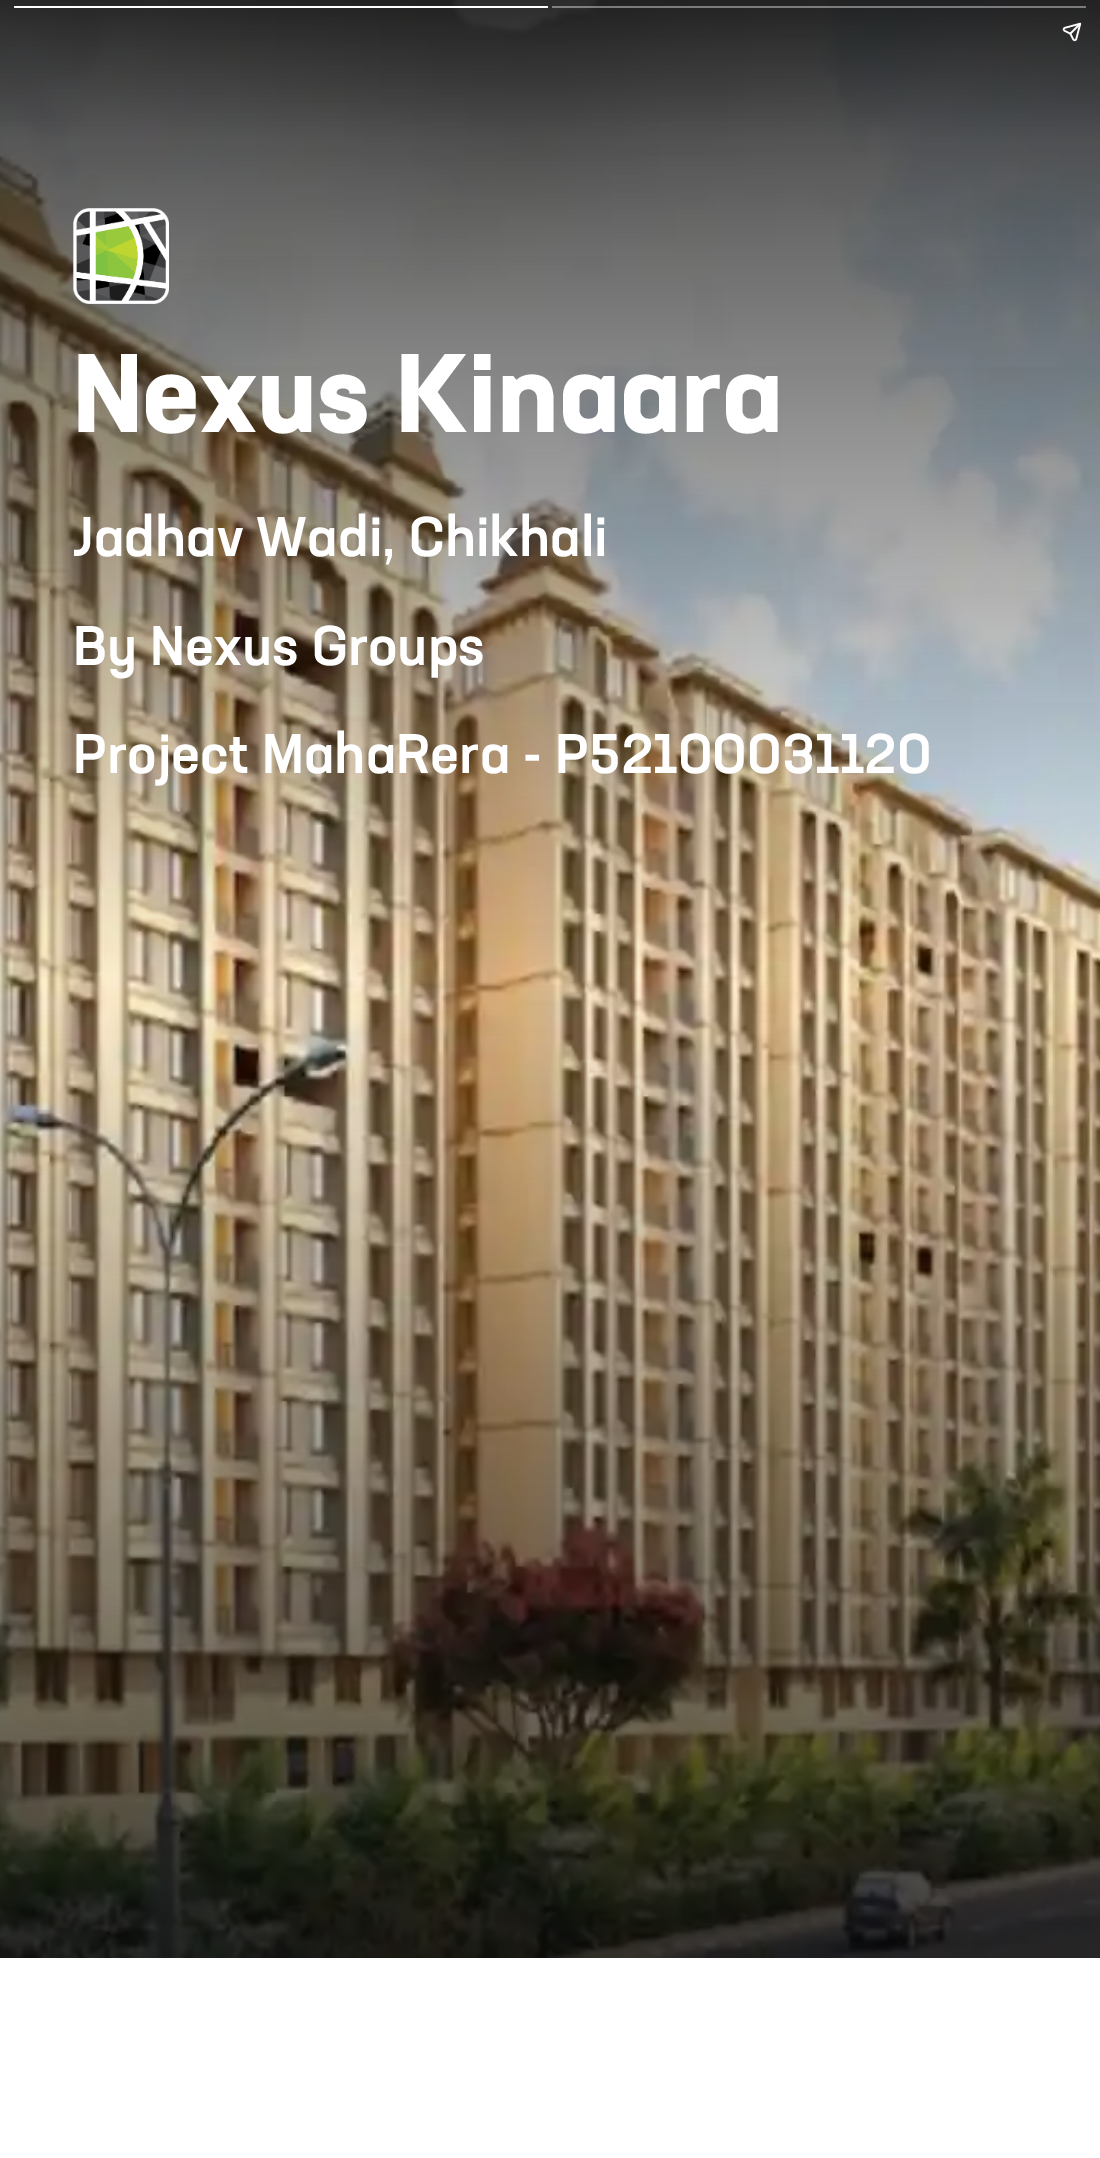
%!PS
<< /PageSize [1100 2158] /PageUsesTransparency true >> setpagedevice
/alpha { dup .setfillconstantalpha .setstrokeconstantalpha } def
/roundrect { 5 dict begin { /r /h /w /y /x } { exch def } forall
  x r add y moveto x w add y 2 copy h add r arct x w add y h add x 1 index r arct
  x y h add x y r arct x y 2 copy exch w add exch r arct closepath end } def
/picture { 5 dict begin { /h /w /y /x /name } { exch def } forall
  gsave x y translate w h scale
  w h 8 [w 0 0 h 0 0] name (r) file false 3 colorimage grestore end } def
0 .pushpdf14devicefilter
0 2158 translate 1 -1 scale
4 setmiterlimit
1 setgray
0 0 1100 2158 rectfill
(img2.rgb) 0 0 1100 1958 picture
14 6 534 2 1 roundrect fill
0.4 alpha
552 6 534 2 1 roundrect fill
1 alpha
(img1.rgb) 1062 22 20 20 picture
(img3.rgb) 73 208 96 96 picture
/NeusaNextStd-Bold [110 0 0 -110 0 0] selectfont
73 432 moveto (Nexus Kinaara) show
/NeusaNextStd-Medium [55.1 0 0 -55.1 0 0] selectfont
73 556 moveto (Jadhav Wadi, Chikhali) show
73 665 moveto (By Nexus Groups) show
73 773 moveto (Project MahaRera - P52100031120) show
.poppdf14devicefilter showpage
